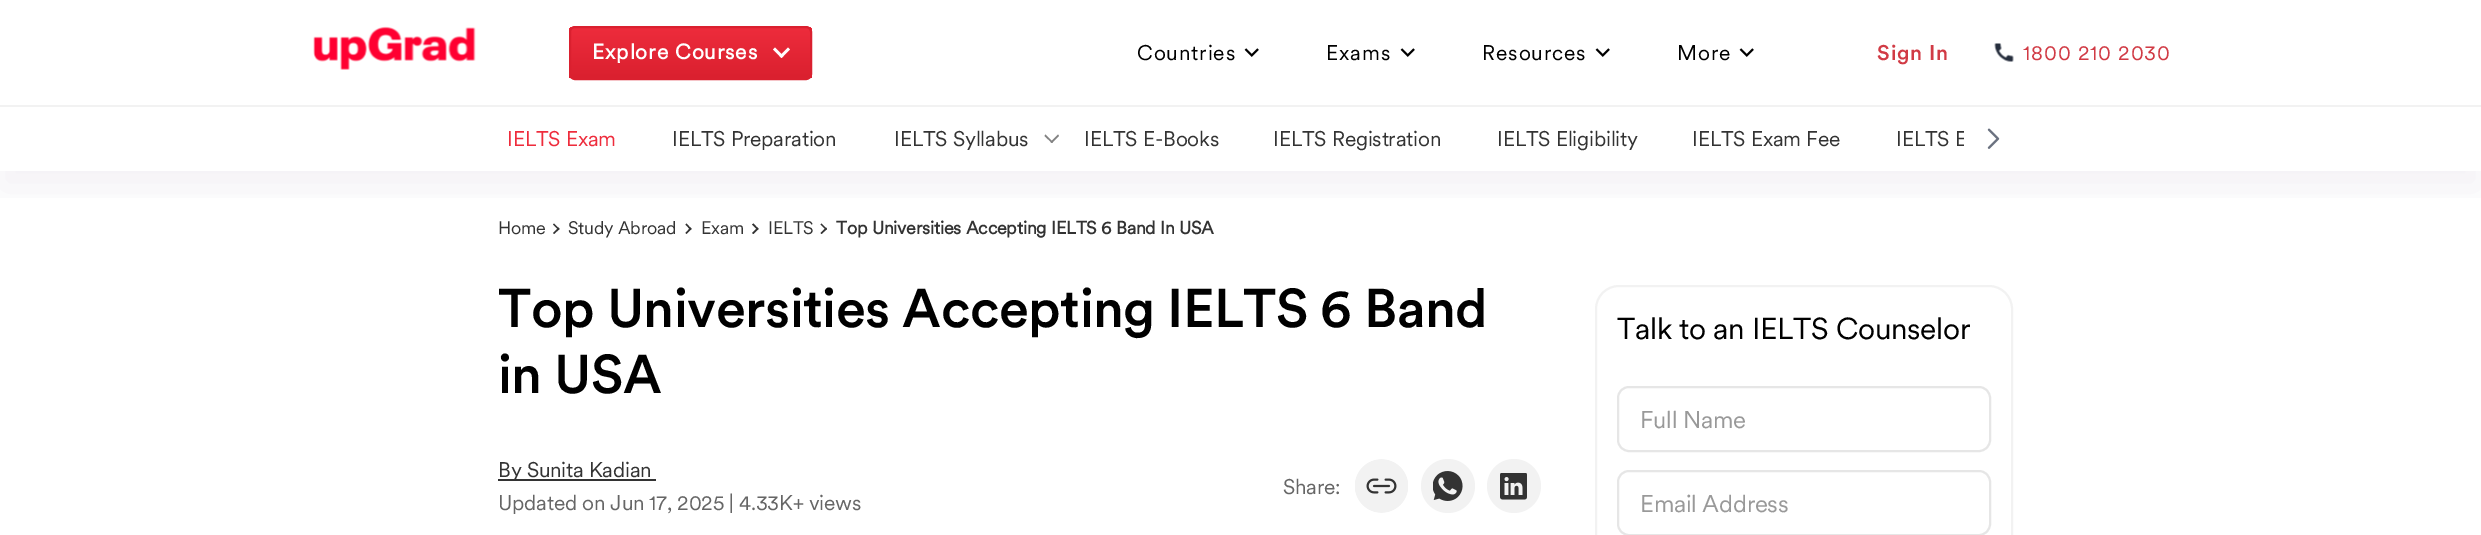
%!PS
<< /PageSize [2481 535] /PageUsesTransparency true >> setpagedevice
/alpha { dup .setfillconstantalpha .setstrokeconstantalpha } def
/roundrect { 5 dict begin { /r /h /w /y /x } { exch def } forall
  x r add y moveto x w add y 2 copy h add r arct x w add y h add x 1 index r arct
  x y h add x y r arct x y 2 copy exch w add exch r arct closepath end } def
/shadow { 12 dict begin { /a /b /q /h /w /y /x } { exch def } forall gsave /was 0 def
  9 -2 -9 { dup b mul 4 div /e exch def 1 sub .425 mul 2.718 exch exp 1 add a .99 .min exch div /now exch def
    1 1 now sub 1 was sub div sub alpha /was now def
    w h .min e 2 mul add 0 gt { x e sub y e sub w e 2 mul add h e 2 mul add
      q e add b .6 mul add w h .min 2 div e add .min 0 .max roundrect fill } if } for grestore end } def
/picture { 5 dict begin { /h /w /y /x /name } { exch def } forall
  gsave x y translate w h scale
  w h 8 [w 0 0 h 0 0] name (r) file false 3 colorimage grestore end } def
0 .pushpdf14devicefilter
0 535 translate 1 -1 scale
4 setmiterlimit
1 setgray
0 0 2481 535 rectfill
gsave
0 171 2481 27 rectclip
0.165 0.027 0.275 setrgbcolor
0 123 2481 66 0 21 0.06 shadow
grestore
30 103 2421 2 rectfill
(img1.rgb) 313 26 163 44 picture
gsave
569 26 243 54 6 roundrect clip newpath
gsave newpath 569 27 moveto 812 27 lineto 812 78 lineto 569 78 lineto closepath clip newpath
<< /ShadingType 2 /ColorSpace /DeviceRGB /Coords [690 27 690 78] /Extend [true true] /Function << /FunctionType 2 /Domain [0 1] /C0 [0.933 0.173 0.235] /C1 [0.855 0.125 0.184] /N 1 >> >> shfill grestore
grestore
0.855 0.125 0.184 setrgbcolor
2 setlinewidth
570 27 241 52 5 roundrect stroke
/Circular-Bold [21 0 0 -21 0 0] selectfont
1 setgray
592 59 moveto 0.9 0 (Explore Courses) ashow
newpath 788 47.5 moveto 790 49.5 lineto 781.5 58 lineto 779.5 56 lineto closepath fill
newpath 775 47.5 moveto 783.5 56 lineto 781.5 58 lineto 773 49.5 lineto closepath fill
/Circular-Regular [21 0 0 -21 0 0] selectfont
0 setgray
1137 60 moveto 0.9 0 (Countries) ashow
(img2.rgb) 1244 48 15 9 picture
1326 60 moveto 0.9 0 (Exams) ashow
(img2.rgb) 1400 48 15 9 picture
1482 60 moveto 0.9 0 (Resources) ashow
(img2.rgb) 1595 48 15 9 picture
1677 60 moveto 0.9 0 (More) ashow
(img2.rgb) 1739 48 15 9 picture
/Circular-Medium [21 0 0 -21 0 0] selectfont
0.82 0.231 0.271 setrgbcolor
1877 60 moveto 0.9 0 (Sign In) ashow
(img3.rgb) 1994 43 20 19 picture
/Circular-Regular [21 0 0 -21 0 0] selectfont
2023 60 moveto 0.9 0 (1800 210 2030) ashow
0.949 setgray
0 105 2481 2 rectfill
0.933 0.173 0.235 setrgbcolor
507 146 moveto -0.2 0 (IELTS Exam) ashow
0.2 setgray
672 146 moveto -0.2 0 (IELTS Preparation) ashow
894 146 moveto -0.2 0 (IELTS Syllabus) ashow
0.51 setgray
newpath 1058 134.5 moveto 1059 136 lineto 1052 143 lineto 1050.5 142 lineto closepath fill
newpath 1045.5 134.5 moveto 1053 142 lineto 1052 143 lineto 1044.5 136 lineto closepath fill
0.2 setgray
1084 146 moveto -0.2 0 (IELTS E-Books) ashow
1273 146 moveto -0.2 0 (IELTS Registration) ashow
1497 146 moveto -0.2 0 (IELTS Eligibility) ashow
1692 146 moveto -0.2 0 (IELTS Exam Fee) ashow
gsave
480 107 1484 64 rectclip
/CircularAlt-Regular [21 0 0 -21 0 0] selectfont
1896 146 moveto -0.2 0 (IELTS E) ashow
grestore
(img4.rgb) 1987 128 13 21 picture
/Circular-Regular [18 0 0 -18 0 0] selectfont
498 234 moveto -0.2 0 (Home) ashow
newpath 553 224.5 moveto 554 223.5 lineto 559.5 229 lineto 558.5 230 lineto closepath fill
newpath 553 233 moveto 558.5 227.5 lineto 559.5 229 lineto 554 234 lineto closepath fill
568 234 moveto -0.2 0 (Study Abroad) ashow
newpath 685.5 224.5 moveto 686.5 223.5 lineto 691.5 229 lineto 690.5 230 lineto closepath fill
newpath 685.5 233 moveto 690.5 227.5 lineto 691.5 229 lineto 686.5 234 lineto closepath fill
701 234 moveto -0.2 0 (Exam) ashow
newpath 752 224.5 moveto 753.5 223.5 lineto 758.5 229 lineto 757.5 230 lineto closepath fill
newpath 752 233 moveto 757.5 227.5 lineto 758.5 229 lineto 753.5 234 lineto closepath fill
768 234 moveto -0.2 0 (IELTS) ashow
newpath 820.5 224.5 moveto 821.5 223.5 lineto 827 229 lineto 826 230 lineto closepath fill
newpath 820.5 233 moveto 826 227.5 lineto 827 229 lineto 821.5 234 lineto closepath fill
/Circular-Bold [18 0 0 -18 0 0] selectfont
836 234 moveto -0.2 0 (Top Universities Accepting IELTS 6 Band In USA) ashow
/Circular-Medium [54 0 0 -54 0 0] selectfont
0 setgray
498 327 moveto -0.55 0 (Top Universities Accepting IELTS 6 Band) ashow
498 393 moveto -0.55 0 (in USA) ashow
0.2 setgray
498 479 158 2 rectfill
/Circular-Regular [21 0 0 -21 0 0] selectfont
498 477 moveto -0.2 0 (By Sunita Kadian) ashow
0.4 setgray
498 510 moveto -0.2 0 (Updated on Jun 17, 2025 | 4.33K+ views) ashow
1283 494 moveto -0.2 0 (Share:) ashow
(img5.rgb) 1355 459 53 54 picture
0.949 setgray
newpath 1448 486 27 0 360 arc closepath fill
(img6.rgb) 1433 471 30 30 picture
newpath 1514 486 27 0 360 arc closepath fill
(img7.rgb) 1500 473 27 27 picture
1596 286 416 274 23 roundrect stroke
/Circular-Regular [30 0 0 -30 0 0] selectfont
0 setgray
1617 339 moveto -0.3 0 (Talk to an IELTS Counselor) ashow
0.902 setgray
1618 387 372 64 11 roundrect stroke
/Circular-Regular [24 0 0 -24 0 0] selectfont
0.6 setgray
1640 428 moveto -0.25 0 (Full Name) ashow
0.902 setgray
1618 471 372 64 11 roundrect stroke
0.6 setgray
1640 512 moveto -0.25 0 (Email Address) ashow
.poppdf14devicefilter showpage
